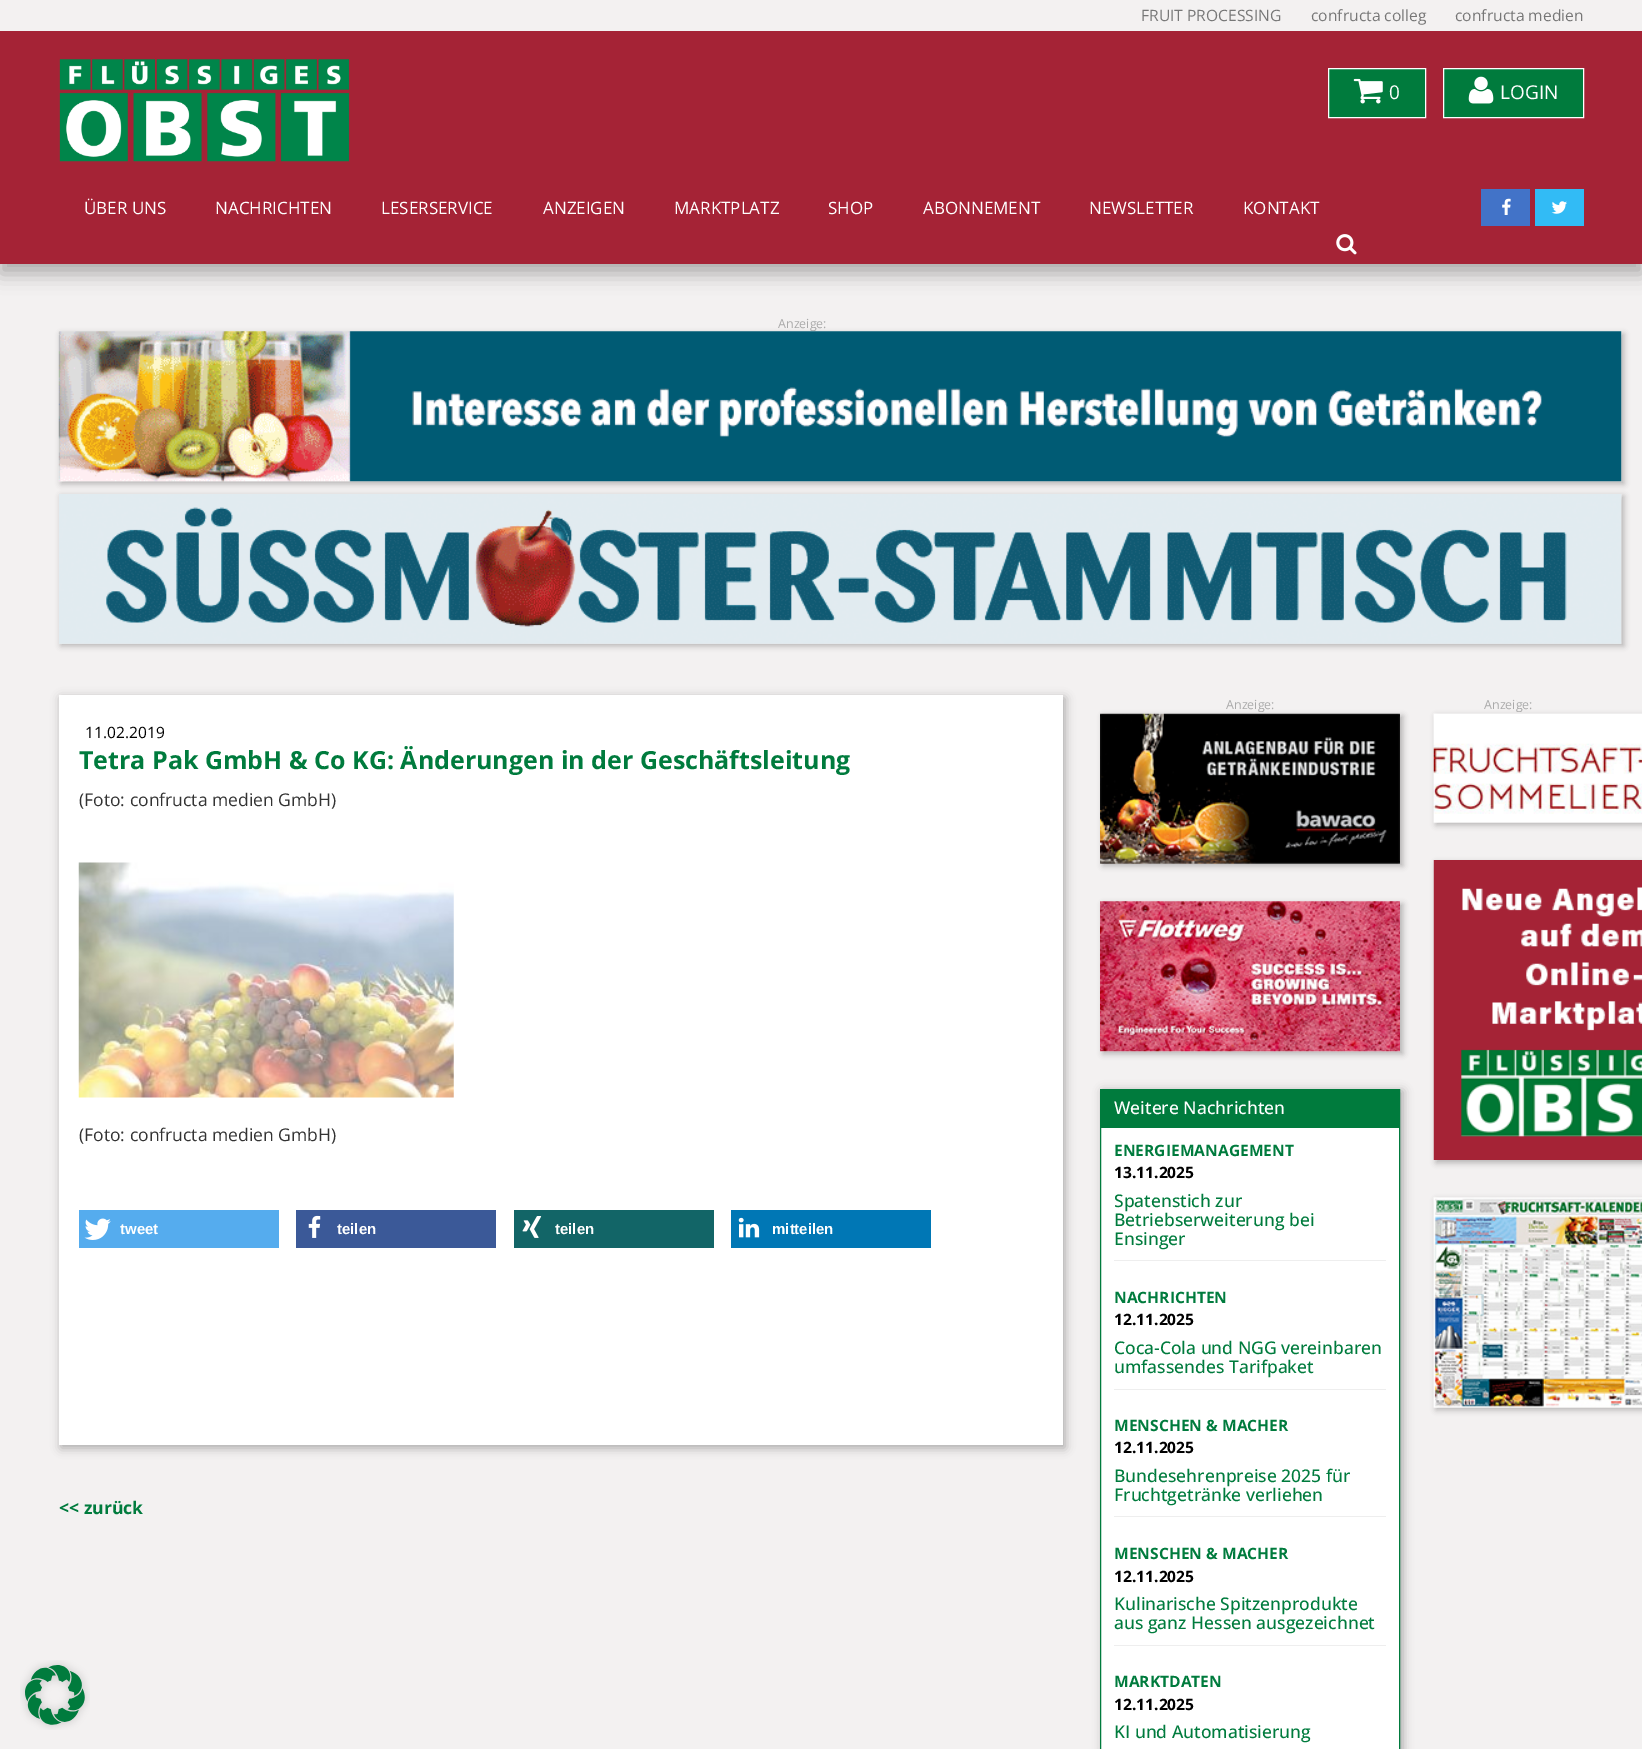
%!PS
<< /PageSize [1642 1749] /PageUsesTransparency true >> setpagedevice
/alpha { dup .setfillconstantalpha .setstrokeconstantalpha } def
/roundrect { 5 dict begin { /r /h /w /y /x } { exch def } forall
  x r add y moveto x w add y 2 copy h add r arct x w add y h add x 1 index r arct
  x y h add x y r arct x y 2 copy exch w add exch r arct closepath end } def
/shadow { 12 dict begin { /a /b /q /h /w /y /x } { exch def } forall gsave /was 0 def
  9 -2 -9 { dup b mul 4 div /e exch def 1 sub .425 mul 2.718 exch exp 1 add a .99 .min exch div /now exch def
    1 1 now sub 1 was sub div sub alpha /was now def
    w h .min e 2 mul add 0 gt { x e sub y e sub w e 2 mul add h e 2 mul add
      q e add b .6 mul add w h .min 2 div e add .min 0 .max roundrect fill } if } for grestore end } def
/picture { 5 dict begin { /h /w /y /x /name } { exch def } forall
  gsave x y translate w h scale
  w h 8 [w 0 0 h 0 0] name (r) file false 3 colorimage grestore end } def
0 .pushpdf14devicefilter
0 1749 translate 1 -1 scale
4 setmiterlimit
0.953 0.945 0.945 setrgbcolor
0 0 1642 1749 rectfill
0 setgray
0 10 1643 264 0 9.5 0.29 shadow
0.647 0.137 0.212 setrgbcolor
0 31 1642 233 rectfill
0.953 0.945 0.945 setrgbcolor
0 0 1642 31 rectfill
/OpenSans-Regular [15.6 0 0 -15.6 0 0] selectfont
0.467 setgray
1141 21 moveto (FRUIT PROCESSING) show
1311 21 moveto (confructa colleg) show
1455 21 moveto (confructa medien) show
(img1.rgb) 59 59 291 103 picture
0 0.482 0.239 setrgbcolor
newpath 1328.5 68.5 moveto 1425.5 68.5 lineto 1425.5 117.5 lineto 1328.5 117.5 lineto closepath gsave fill grestore
1 setgray
stroke
(img2.rgb) 1353 78 30 26 picture
/OpenSans-Regular [19 0 0 -19 0 0] selectfont
1389 99 moveto (0) show
0 0.482 0.239 setrgbcolor
newpath 1443.5 68.5 moveto 1583.5 68.5 lineto 1583.5 117.5 lineto 1443.5 117.5 lineto closepath gsave fill grestore
1 setgray
stroke
(img3.rgb) 1468 76 26 28 picture
1500 99 moveto (LOGIN) show
/OpenSans-Regular [17 0 0 -17 0 0] selectfont
84 214 moveto (ÜBER UNS) show
215 214 moveto (NACHRICHTEN) show
381 214 moveto (LESERSERVICE) show
543 214 moveto (ANZEIGEN) show
674 214 moveto (MARKTPLATZ) show
828 214 moveto (SHOP) show
923 214 moveto (ABONNEMENT) show
1089 214 moveto (NEWSLETTER) show
1243 214 moveto (KONTAKT) show
(img4.rgb) 1336 234 21 21 picture
0.259 0.451 0.784 setrgbcolor
1481 189 49 37 rectfill
(img5.rgb) 1502 198 9 17 picture
0.196 0.733 0.961 setrgbcolor
1535 189 49 37 rectfill
(img6.rgb) 1551 201 16 13 picture
(img7.rgb) 20 1660 70 70 picture
/OpenSans-Regular [12.5 0 0 -12.5 0 0] selectfont
0.667 setgray
778 328 moveto (Anzeige:) show
0 setgray
61 334 1563 150 0 3 0.25 shadow
(img8.rgb) 58 331 1564 151 picture
61 496 1563 150 0 3 0.25 shadow
(img9.rgb) 59 494 1563 150 picture
61 698 1004 750 0 5 0.3 shadow
1 setgray
59 695 1004 750 rectfill
/OpenSans-Regular [15.6 0 0 -15.6 0 0] selectfont
0 setgray
85 738 moveto (11.02.2019) show
/OpenSans-Bold [25 0 0 -25 0 0] selectfont
0 0.482 0.239 setrgbcolor
79 769 moveto (Tetra Pak GmbH & Co KG: Änderungen in der Geschäftsleitung) show
/OpenSans-Regular [17.5 0 0 -17.5 0 0] selectfont
0.2 setgray
79 806 moveto (\(Foto: confructa medien GmbH\)) show
(img10.rgb) 78 862 376 236 picture
79 1141 moveto (\(Foto: confructa medien GmbH\)) show
0.333 0.675 0.933 setrgbcolor
79 1210 200 38 rectfill
(img11.rgb) 84 1218 27 22 picture
/LiberationSans-Bold [15 0 0 -15 0 0] selectfont
1 setgray
120 1234 moveto (tweet) show
0.231 0.349 0.596 setrgbcolor
296 1210 200 38 rectfill
(img12.rgb) 308 1215 13 23 picture
1 setgray
337 1234 moveto (teilen) show
0.071 0.396 0.404 setrgbcolor
514 1210 200 38 rectfill
(img13.rgb) 522 1216 20 22 picture
1 setgray
555 1234 moveto (teilen) show
0 0.467 0.71 setrgbcolor
731 1210 200 38 rectfill
(img14.rgb) 738 1217 22 21 picture
1 setgray
772 1234 moveto (mitteilen) show
/OpenSans-Bold [17.5 0 0 -17.5 0 0] selectfont
0 0.482 0.239 setrgbcolor
59 1514 moveto (<< zurück) show
/OpenSans-Regular [12.5 0 0 -12.5 0 0] selectfont
0.667 setgray
1226 709 moveto (Anzeige:) show
0 setgray
1103 716 300 150 0 3 0.25 shadow
(img15.rgb) 1100 713 300 151 picture
1103 904 300 150 0 3 0.25 shadow
(img16.rgb) 1100 901 300 151 picture
1103 1091 300 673 0 5 0.3 shadow
1 setgray
1101 1128 298 621 rectfill
0 0.482 0.239 setrgbcolor
1100.5 1089.5 299 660 rectstroke
1101 1090 298 38 rectfill
/OpenSans-Medium [17.5 0 0 -17.5 0 0] selectfont
1 setgray
1114 1114 moveto (Weitere Nachrichten) show
0.933 setgray
1114 1260 272 1 rectfill
/OpenSans-Bold [15.6 0 0 -15.6 0 0] selectfont
0 0.482 0.239 setrgbcolor
1114 1156 moveto (ENERGIEMANAGEMENT) show
0 setgray
1114 1178 moveto (13.11.2025) show
/OpenSans-Medium [17.5 0 0 -17.5 0 0] selectfont
0 0.482 0.239 setrgbcolor
1114 1207 moveto (Spatenstich zur) show
1114 1226 moveto (Betriebserweiterung bei) show
1114 1245 moveto (Ensinger) show
0.933 setgray
1114 1389 272 1 rectfill
/OpenSans-Bold [15.6 0 0 -15.6 0 0] selectfont
0 0.482 0.239 setrgbcolor
1114 1303 moveto (NACHRICHTEN) show
0 setgray
1114 1325 moveto (12.11.2025) show
/OpenSans-Medium [17.5 0 0 -17.5 0 0] selectfont
0 0.482 0.239 setrgbcolor
1114 1354 moveto (Coca-Cola und NGG vereinbaren) show
1114 1373 moveto (umfassendes Tarifpaket) show
0.933 setgray
1114 1516 272 1 rectfill
/OpenSans-Bold [15.6 0 0 -15.6 0 0] selectfont
0 0.482 0.239 setrgbcolor
1114 1431 moveto (MENSCHEN & MACHER) show
0 setgray
1114 1453 moveto (12.11.2025) show
/OpenSans-Medium [17.5 0 0 -17.5 0 0] selectfont
0 0.482 0.239 setrgbcolor
1114 1482 moveto (Bundesehrenpreise 2025 für) show
1114 1501 moveto (Fruchtgetränke verliehen) show
0.933 setgray
1114 1645 272 1 rectfill
/OpenSans-Bold [15.6 0 0 -15.6 0 0] selectfont
0 0.482 0.239 setrgbcolor
1114 1559 moveto (MENSCHEN & MACHER) show
0 setgray
1114 1582 moveto (12.11.2025) show
/OpenSans-Medium [17.5 0 0 -17.5 0 0] selectfont
0 0.482 0.239 setrgbcolor
1114 1610 moveto (Kulinarische Spitzenprodukte) show
1114 1629 moveto (aus ganz Hessen ausgezeichnet) show
/OpenSans-Bold [15.6 0 0 -15.6 0 0] selectfont
1114 1687 moveto (MARKTDATEN) show
0 setgray
1114 1710 moveto (12.11.2025) show
/OpenSans-Medium [17.5 0 0 -17.5 0 0] selectfont
0 0.482 0.239 setrgbcolor
1114 1738 moveto (KI und Automatisierung) show
/OpenSans-Regular [12.5 0 0 -12.5 0 0] selectfont
0.667 setgray
1484 709 moveto (Anzeige:) show
0 setgray
1436 716 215 109 0 3 0.25 shadow
(img17.rgb) 1433 713 209 110 picture
1436 863 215 300 0 3 0.25 shadow
(img18.rgb) 1433 860 209 300 picture
1436 1200 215 210 0 3 0.25 shadow
(img19.rgb) 1433 1197 209 211 picture
.poppdf14devicefilter showpage
